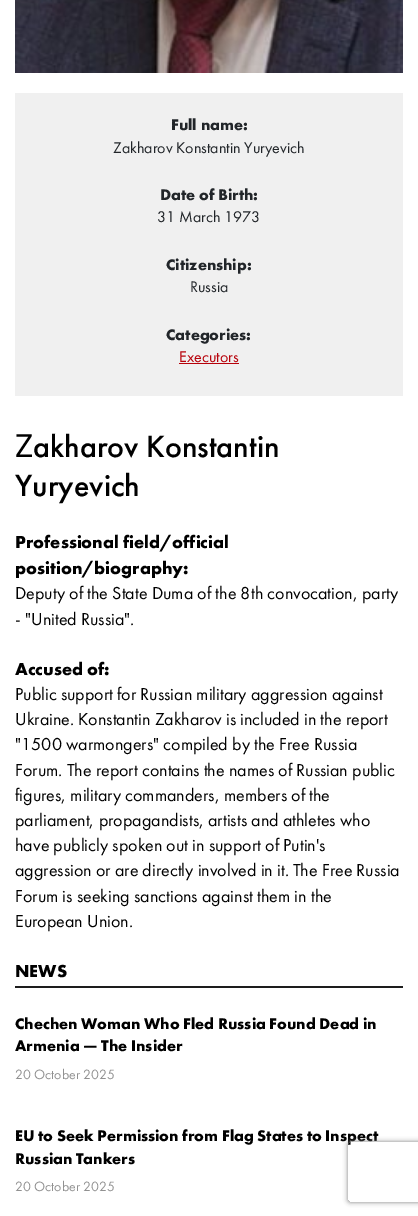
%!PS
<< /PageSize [418 1216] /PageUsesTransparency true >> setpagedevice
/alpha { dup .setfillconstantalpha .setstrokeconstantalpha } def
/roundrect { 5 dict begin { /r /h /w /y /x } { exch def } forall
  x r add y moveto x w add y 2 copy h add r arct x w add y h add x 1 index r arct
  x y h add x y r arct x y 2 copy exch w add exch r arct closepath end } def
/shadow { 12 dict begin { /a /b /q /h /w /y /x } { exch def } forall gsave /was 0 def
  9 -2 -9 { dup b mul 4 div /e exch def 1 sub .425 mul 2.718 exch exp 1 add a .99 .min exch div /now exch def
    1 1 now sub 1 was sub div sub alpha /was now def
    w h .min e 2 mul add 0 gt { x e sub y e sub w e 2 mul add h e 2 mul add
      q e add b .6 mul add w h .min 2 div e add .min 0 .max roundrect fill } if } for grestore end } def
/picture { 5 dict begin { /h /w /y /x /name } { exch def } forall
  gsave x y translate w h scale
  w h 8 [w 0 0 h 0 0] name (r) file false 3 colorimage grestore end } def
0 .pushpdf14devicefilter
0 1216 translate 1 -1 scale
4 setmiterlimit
1 setgray
0 0 418 1216 rectfill
(img1.rgb) 15 0 388 73 picture
0.941 setgray
15 93 388 303 rectfill
/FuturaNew-Bold [16 0 0 -16 0 0] selectfont
0.129 0.145 0.161 setrgbcolor
171 130 moveto (Full name:) show
/FuturaNew-Regular [16 0 0 -16 0 0] selectfont
113 153 moveto (Zakharov Konstantin Yuryevich) show
/FuturaNew-Bold [16 0 0 -16 0 0] selectfont
160 200 moveto (Date of Birth:) show
/FuturaNew-Regular [16 0 0 -16 0 0] selectfont
157 222 moveto (31 March 1973) show
/FuturaNew-Bold [16 0 0 -16 0 0] selectfont
166 270 moveto (Citizenship:) show
/FuturaNew-Regular [16 0 0 -16 0 0] selectfont
190 292 moveto (Russia) show
/FuturaNew-Bold [16 0 0 -16 0 0] selectfont
166 340 moveto (Categories:) show
/FuturaNew-Regular [16 0 0 -16 0 0] selectfont
0.718 0.004 0.039 setrgbcolor
179 362 moveto (Executors) show
179 363 60 1 rectfill
/NotoSans-Regular [32 0 0 -32 0 0] selectfont
0 setgray
15 457 moveto (Z) show
/FuturaNew-Medium [32 0 0 -32 0 0] selectfont
33 457 moveto (akharov Konstantin) show
15 496 moveto (Yuryevich) show
/FuturaNew-Bold [18 0 0 -18 0 0] selectfont
15 548 moveto (Professional field/official) show
15 574 moveto (position/biography:) show
/FuturaNew-Regular [18 0 0 -18 0 0] selectfont
15 599 moveto (Deputy of the State Duma of the 8th convocation, party) show
15 625 moveto (- "United Russia".) show
/FuturaNew-Bold [18 0 0 -18 0 0] selectfont
15 675 moveto (Accused of:) show
/FuturaNew-Regular [18 0 0 -18 0 0] selectfont
15 700 moveto (Public support for Russian military aggression against) show
15 725 moveto (Ukraine. Konstantin Zakharov is included in the report) show
15 750 moveto ("1500 warmongers" compiled by the Free Russia) show
15 776 moveto (Forum. The report contains the names of Russian public) show
15 801 moveto (figures, military commanders, members of the) show
15 826 moveto (parliament, propagandists, artists and athletes who) show
15 851 moveto (have publicly spoken out in support of Putin's) show
15 876 moveto (aggression or are directly involved in it. The Free Russia) show
15 902 moveto (Forum is seeking sanctions against them in the) show
15 927 moveto (European Union.) show
0.114 setgray
15 986 388 2 rectfill
/FuturaNew-Bold [18 0 0 -18 0 0] selectfont
0 setgray
15 977 moveto (NEWS) show
/FuturaNew-Bold [16 0 0 -16 0 0] selectfont
15 1029 moveto (Chechen Woman Who Fled Russia Found Dead in) show
15 1051 moveto (Armenia — The Insider) show
/FuturaNew-Regular [14 0 0 -14 0 0] selectfont
0.569 setgray
15 1079 moveto (20 October 2025) show
/FuturaNew-Bold [16 0 0 -16 0 0] selectfont
0 setgray
15 1141 moveto (EU to Seek Permission from Flag States to Inspect) show
15 1164 moveto (Russian Tankers) show
/FuturaNew-Regular [14 0 0 -14 0 0] selectfont
0.569 setgray
15 1191 moveto (20 October 2025) show
gsave
newpath 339 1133 moveto 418 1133 lineto 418 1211 lineto 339 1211 lineto closepath 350 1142 moveto 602 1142 lineto 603 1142 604 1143 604 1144 curveto 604 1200 lineto 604 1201 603 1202 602 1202 curveto 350 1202 lineto 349 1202 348 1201 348 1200 curveto 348 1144 lineto 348 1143 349 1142 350 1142 curveto closepath eoclip newpath
0.502 setgray
348 1142 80 60 2 2.5 1 shadow
grestore
.poppdf14devicefilter showpage
